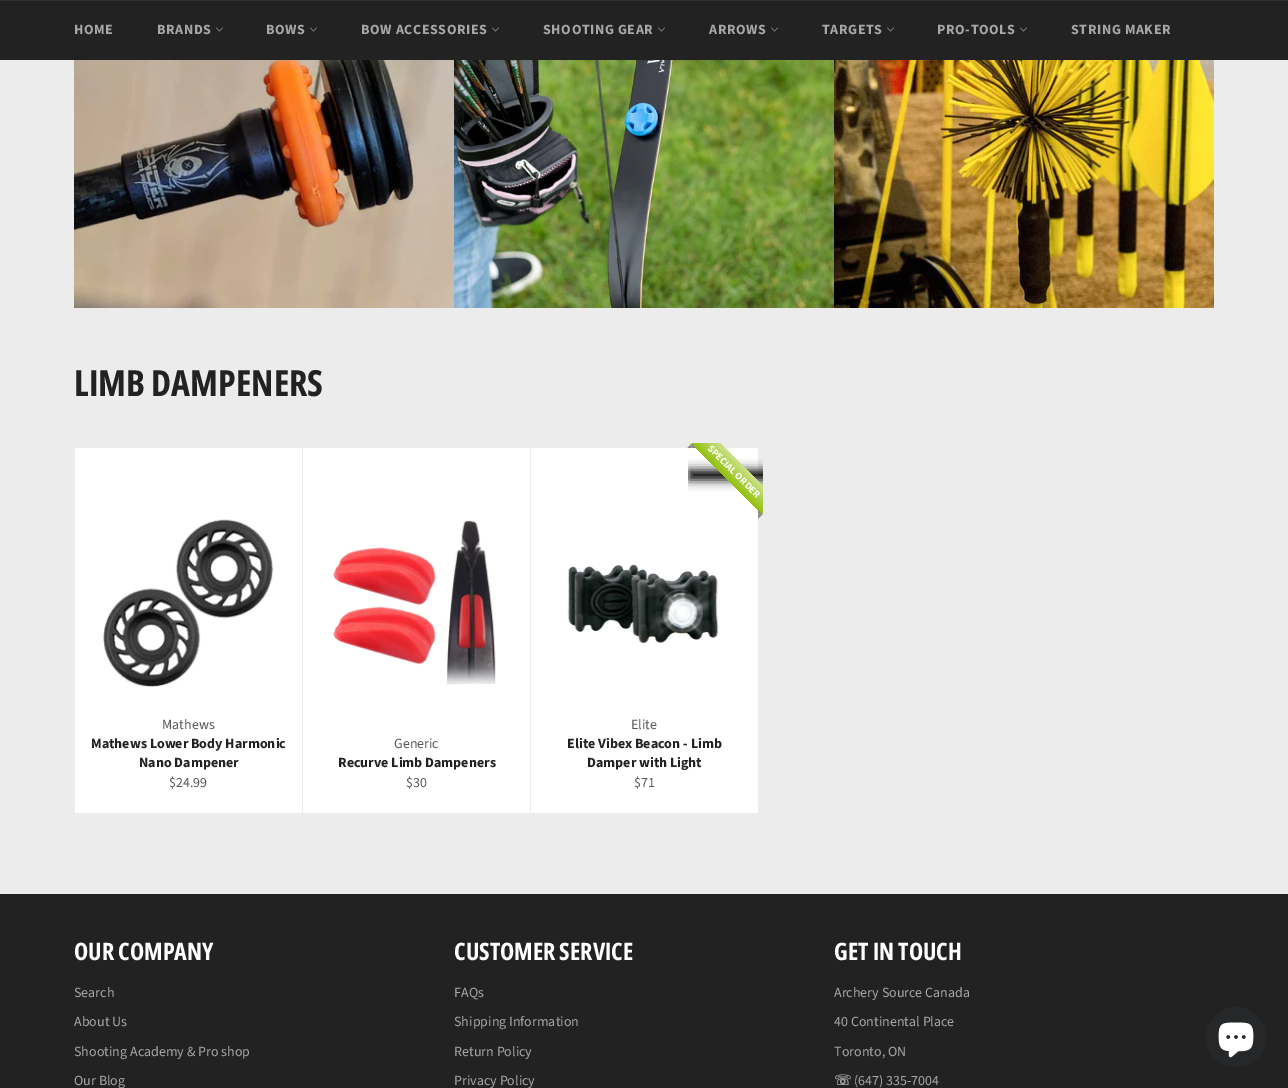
%!PS
<< /PageSize [1288 1088] /PageUsesTransparency true >> setpagedevice
/alpha { dup .setfillconstantalpha .setstrokeconstantalpha } def
/roundrect { 5 dict begin { /r /h /w /y /x } { exch def } forall
  x r add y moveto x w add y 2 copy h add r arct x w add y h add x 1 index r arct
  x y h add x y r arct x y 2 copy exch w add exch r arct closepath end } def
/shadow { 12 dict begin { /a /b /q /h /w /y /x } { exch def } forall gsave /was 0 def
  9 -2 -9 { dup b mul 4 div /e exch def 1 sub .425 mul 2.718 exch exp 1 add a .99 .min exch div /now exch def
    1 1 now sub 1 was sub div sub alpha /was now def
    w h .min e 2 mul add 0 gt { x e sub y e sub w e 2 mul add h e 2 mul add
      q e add b .6 mul add w h .min 2 div e add .min 0 .max roundrect fill } if } for grestore end } def
/picture { 5 dict begin { /h /w /y /x /name } { exch def } forall
  gsave x y translate w h scale
  w h 8 [w 0 0 h 0 0] name (r) file false 3 colorimage grestore end } def
0 .pushpdf14devicefilter
0 1088 translate 1 -1 scale
4 setmiterlimit
0.925 setgray
0 0 1288 1088 rectfill
0.133 setgray
0 1 1288 59 rectfill
0.184 setgray
0 0 1288 1 rectfill
/SourceSansPro-Bold [14 0 0 -14 0 0] selectfont
0.655 setgray
74 34 moveto 0.6 0 (HOME) ashow
157 34 moveto 0.6 0 (BRANDS) ashow
(img1.rgb) 216 27 7 5 picture
266 34 moveto 0.6 0 (BOWS) ashow
(img1.rgb) 310 27 7 5 picture
361 34 moveto 0.6 0 (BOW ACCESSORIES) ashow
(img1.rgb) 492 27 7 5 picture
543 34 moveto 0.6 0 (SHOOTING GEAR) ashow
(img1.rgb) 658 27 7 5 picture
709 34 moveto 0.6 0 (ARROWS) ashow
(img1.rgb) 771 27 7 5 picture
822 34 moveto 0.6 0 (TARGETS) ashow
(img1.rgb) 887 27 7 5 picture
937 34 moveto 0.6 0 (PRO-TOOLS) ashow
(img1.rgb) 1020 27 7 5 picture
1071 34 moveto 0.6 0 (STRING MAKER) ashow
(img2.rgb) 74 60 380 248 picture
(img3.rgb) 454 60 380 248 picture
(img4.rgb) 834 60 380 248 picture
/OpenSansCondensed-Bold [36 0 0 -36 0 0] selectfont
0.133 setgray
74 396 moveto (LIMB DAMPENERS) show
1 setgray
75 448 227 365 rectfill
(img5.rgb) 103 519 171 169 picture
/SourceSansPro-Regular [14 0 0 -14 0 0] selectfont
0.345 setgray
162 729 moveto (Mathews) show
/SourceSansPro-Bold [14 0 0 -14 0 0] selectfont
0.133 setgray
91 748 moveto (Mathews Lower Body Harmonic) show
139 767 moveto (Nano Dampener) show
/SourceSansPro-Regular [14 0 0 -14 0 0] selectfont
0.345 setgray
169 787 moveto ($24.99) show
1 setgray
303 448 227 365 rectfill
(img6.rgb) 333 520 163 165 picture
0.345 setgray
394 748 moveto (Generic) show
/SourceSansPro-Bold [14 0 0 -14 0 0] selectfont
0.133 setgray
338 767 moveto (Recurve Limb Dampeners) show
/SourceSansPro-Regular [14 0 0 -14 0 0] selectfont
0.345 setgray
406 787 moveto ($30) show
1 setgray
531 448 227 365 rectfill
gsave
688 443 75 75 rectclip
0 setgray
689 470 90 10 0 5 1 shadow
grestore
gsave
688 443 75 75 rectclip
gsave newpath 706 429 moveto 776 500 lineto 762 514 lineto 692 444 lineto closepath clip newpath
<< /ShadingType 2 /ColorSpace /DeviceRGB /Coords [741 465 727 479] /Extend [true true] /Function << /FunctionType 2 /Domain [0 1] /C0 [0.788 0.878 0.525] /C1 [0.573 0.753 0.047] /N 1 >> >> shfill grestore
grestore
0.533 setgray
newpath 691.5 443.5 moveto 696 448 lineto 691.5 448 lineto closepath fill
newpath 687.5 448 moveto 691.5 443.5 lineto 691.5 448 lineto closepath fill
/SourceSansPro-Bold [10 0 0 -10 0 0] selectfont
1 setgray
gsave 707 449 translate 45 rotate 0 0 moveto (SPECIAL ORDER) show grestore
0.533 setgray
newpath 758 510 moveto 762.5 514.5 lineto 758 514.5 lineto closepath fill
newpath 762.5 514.5 moveto 758 518.5 lineto 758 514.5 lineto closepath fill
(img7.rgb) 567 564 152 80 picture
/SourceSansPro-Regular [14 0 0 -14 0 0] selectfont
0.345 setgray
631 729 moveto (Elite) show
/SourceSansPro-Bold [14 0 0 -14 0 0] selectfont
0.133 setgray
567 748 moveto (Elite Vibex Beacon - Limb) show
587 767 moveto (Damper with Light) show
/SourceSansPro-Regular [14 0 0 -14 0 0] selectfont
0.345 setgray
634 787 moveto ($71) show
0.133 setgray
0 894 1288 194 rectfill
/OpenSansCondensed-Bold [24 0 0 -24 0 0] selectfont
1 setgray
74 960 moveto (OUR COMPANY) show
/SourceSansPro-Regular [14 0 0 -14 0 0] selectfont
0.655 setgray
74 997 moveto (Search) show
74 1026 moveto (About Us) show
74 1056 moveto (Shooting Academy & Pro shop) show
74 1085 moveto (Our Blog) show
/OpenSansCondensed-Bold [24 0 0 -24 0 0] selectfont
1 setgray
454 960 moveto (CUSTOMER SERVICE) show
/SourceSansPro-Regular [14 0 0 -14 0 0] selectfont
0.655 setgray
454 997 moveto (FAQs) show
454 1026 moveto (Shipping Information) show
454 1056 moveto (Return Policy) show
454 1085 moveto (Privacy Policy) show
/OpenSansCondensed-Bold [24 0 0 -24 0 0] selectfont
1 setgray
834 960 moveto (GET IN TOUCH) show
/SourceSansPro-Regular [14 0 0 -14 0 0] selectfont
0.655 setgray
834 997 moveto (Archery Source Canada) show
834 1026 moveto (40 Continental Place) show
834 1056 moveto (Toronto, ON) show
/DejaVuSans-Bold [14 0 0 -14 0 0] selectfont
834 1085 moveto (☏) show
/SourceSansPro-Regular [14 0 0 -14 0 0] selectfont
854 1085 moveto (\(647\) 335-7004) show
0.145 0.153 0.157 setrgbcolor
newpath 1236 1037 30 0 360 arc closepath fill
(img8.rgb) 1218 1022 36 36 picture
.poppdf14devicefilter showpage
